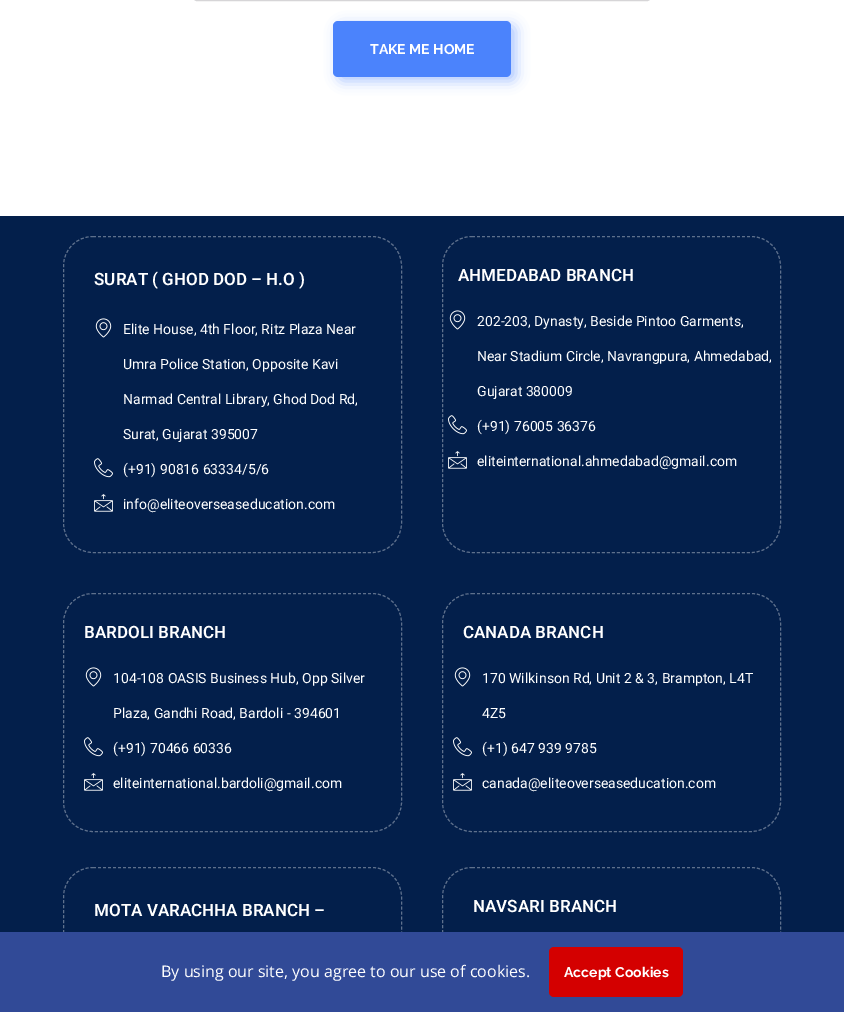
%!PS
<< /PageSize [844 1012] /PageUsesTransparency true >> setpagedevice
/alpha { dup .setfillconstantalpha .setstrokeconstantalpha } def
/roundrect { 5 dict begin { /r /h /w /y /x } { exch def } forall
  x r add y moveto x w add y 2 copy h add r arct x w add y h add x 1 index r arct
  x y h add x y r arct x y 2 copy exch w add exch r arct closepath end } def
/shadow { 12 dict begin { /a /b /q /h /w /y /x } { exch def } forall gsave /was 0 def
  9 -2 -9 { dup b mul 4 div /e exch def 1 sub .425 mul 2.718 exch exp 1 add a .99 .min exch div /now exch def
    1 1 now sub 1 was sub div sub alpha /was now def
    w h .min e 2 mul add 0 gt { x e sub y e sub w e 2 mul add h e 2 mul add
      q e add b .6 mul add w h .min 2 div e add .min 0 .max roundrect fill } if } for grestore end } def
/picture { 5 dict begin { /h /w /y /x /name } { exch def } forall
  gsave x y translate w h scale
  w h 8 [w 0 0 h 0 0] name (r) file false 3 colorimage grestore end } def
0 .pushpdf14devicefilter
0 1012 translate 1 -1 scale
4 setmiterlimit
1 setgray
0 0 844 1012 rectfill
0.839 0.835 0.843 setrgbcolor
192.5 -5.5 459 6 4.5 roundrect stroke
0.294 0.514 0.988 setrgbcolor
338 25 178 56 5 6.5 0.45 shadow
333 21 178 56 5 roundrect fill
/Raleway-Bold [14 0 0 -14 0 0] selectfont
1 setgray
370 54 moveto (TAKE ME HOME) show
0.012 0.122 0.294 setrgbcolor
0 216 844 716 rectfill
0.369 0.439 0.549 setrgbcolor
[3 2] 0 setdash
newpath 93 236.5 moveto 372 236.5 lineto 388.5 236.5 401.5 249.5 401.5 266 curveto 401.5 523 lineto 401.5 539.5 388.5 552.5 372 552.5 curveto 93 552.5 lineto 76.5 552.5 63.5 539.5 63.5 523 curveto 63.5 266 lineto 63.5 249.5 76.5 236.5 93 236.5 curveto closepath stroke
/Roboto-SemiBold [17 0 0 -17 0 0] selectfont
1 setgray
94 285 moveto (SURAT \( GHOD DOD – H.O \)) show
(img1.rgb) 95 318 17 20 picture
/Roboto-Regular [14 0 0 -14 0 0] selectfont
123 334 moveto (Elite House, 4th Floor, Ritz Plaza Near) show
123 369 moveto (Umra Police Station, Opposite Kavi) show
123 404 moveto (Narmad Central Library, Ghod Dod Rd,) show
123 439 moveto (Surat, Gujarat 395007) show
(img2.rgb) 94 458 19 20 picture
123 474 moveto (\(+91\) 90816 63334/5/6) show
(img3.rgb) 94 494 19 18 picture
123 509 moveto (info@eliteoverseaseducation.com) show
0.369 0.439 0.549 setrgbcolor
newpath 472 236.5 moveto 751 236.5 lineto 767.5 236.5 780.5 249.5 780.5 266 curveto 780.5 523 lineto 780.5 539.5 767.5 552.5 751 552.5 curveto 472 552.5 lineto 455.5 552.5 442.5 539.5 442.5 523 curveto 442.5 266 lineto 442.5 249.5 455.5 236.5 472 236.5 curveto closepath stroke
/Roboto-SemiBold [17 0 0 -17 0 0] selectfont
1 setgray
458 281 moveto (AHMEDABAD BRANCH) show
(img1.rgb) 449 310 17 20 picture
/Roboto-Regular [14 0 0 -14 0 0] selectfont
477 326 moveto (202-203, Dynasty, Beside Pintoo Garments,) show
477 361 moveto (Near Stadium Circle, Navrangpura, Ahmedabad,) show
477 396 moveto (Gujarat 380009) show
(img2.rgb) 448 415 19 20 picture
477 431 moveto (\(+91\) 76005 36376) show
(img3.rgb) 448 451 19 18 picture
477 466 moveto (eliteinternational.ahmedabad@gmail.com) show
0.369 0.439 0.549 setrgbcolor
newpath 93 593.5 moveto 372 593.5 lineto 388.5 593.5 401.5 606.5 401.5 623 curveto 401.5 802 lineto 401.5 818.5 388.5 831.5 372 831.5 curveto 93 831.5 lineto 76.5 831.5 63.5 818.5 63.5 802 curveto 63.5 623 lineto 63.5 606.5 76.5 593.5 93 593.5 curveto closepath stroke
/Roboto-SemiBold [17 0 0 -17 0 0] selectfont
1 setgray
84 638 moveto (BARDOLI BRANCH) show
(img1.rgb) 85 667 17 20 picture
/Roboto-Regular [14 0 0 -14 0 0] selectfont
113 683 moveto (104-108 OASIS Business Hub, Opp Silver) show
113 718 moveto (Plaza, Gandhi Road, Bardoli - 394601) show
(img2.rgb) 84 737 19 20 picture
113 753 moveto (\(+91\) 70466 60336) show
(img3.rgb) 84 773 19 18 picture
113 788 moveto (eliteinternational.bardoli@gmail.com) show
0.369 0.439 0.549 setrgbcolor
newpath 472 593.5 moveto 751 593.5 lineto 767.5 593.5 780.5 606.5 780.5 623 curveto 780.5 802 lineto 780.5 818.5 767.5 831.5 751 831.5 curveto 472 831.5 lineto 455.5 831.5 442.5 818.5 442.5 802 curveto 442.5 623 lineto 442.5 606.5 455.5 593.5 472 593.5 curveto closepath stroke
/Roboto-SemiBold [17 0 0 -17 0 0] selectfont
1 setgray
463 638 moveto (CANADA BRANCH) show
(img1.rgb) 454 667 17 20 picture
/Roboto-Regular [14 0 0 -14 0 0] selectfont
482 683 moveto (170 Wilkinson Rd, Unit 2 & 3, Brampton, L4T) show
482 718 moveto (4Z5) show
(img2.rgb) 453 737 19 20 picture
482 753 moveto (\(+1\) 647 939 9785) show
(img3.rgb) 453 773 19 18 picture
482 788 moveto (canada@eliteoverseaseducation.com) show
0.369 0.439 0.549 setrgbcolor
newpath 93 867.5 moveto 372 867.5 lineto 388.5 867.5 401.5 880.5 401.5 897 curveto 401.5 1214 lineto 401.5 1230.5 388.5 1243.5 372 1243.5 curveto 93 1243.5 lineto 76.5 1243.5 63.5 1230.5 63.5 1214 curveto 63.5 897 lineto 63.5 880.5 76.5 867.5 93 867.5 curveto closepath stroke
/Roboto-SemiBold [17 0 0 -17 0 0] selectfont
1 setgray
94 916 moveto (MOTA VARACHHA BRANCH –) show
0.369 0.439 0.549 setrgbcolor
newpath 472 867.5 moveto 751 867.5 lineto 767.5 867.5 780.5 880.5 780.5 897 curveto 780.5 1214 lineto 780.5 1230.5 767.5 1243.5 751 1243.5 curveto 472 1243.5 lineto 455.5 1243.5 442.5 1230.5 442.5 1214 curveto 442.5 897 lineto 442.5 880.5 455.5 867.5 472 867.5 curveto closepath stroke
1 setgray
473 912 moveto (NAVSARI BRANCH) show
0.192 0.29 0.592 setrgbcolor
0 932 844 80 rectfill
/OpenSans-Regular [16 0 0 -16 0 0] selectfont
1 setgray
161 977 moveto (By using our site, you agree to our use of cookies.) show
0.831 0 0 setrgbcolor
549 947 134 50 5 roundrect fill
/Raleway-Bold [14 0 0 -14 0 0] selectfont
1 setgray
564 977 moveto (Accept Cookies) show
.poppdf14devicefilter showpage
